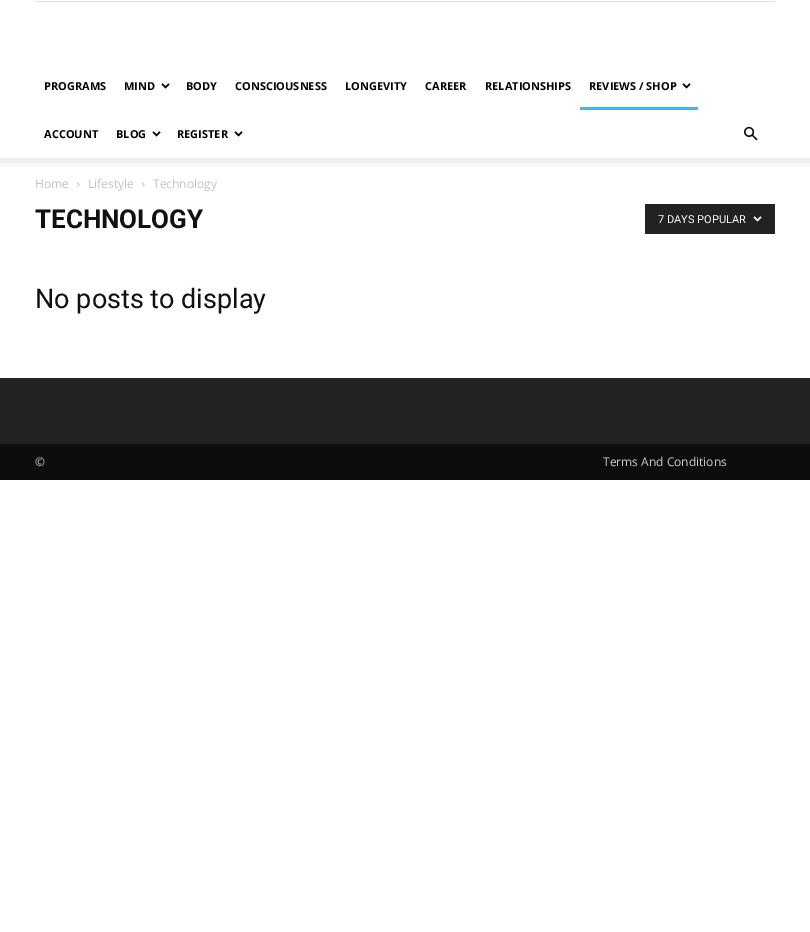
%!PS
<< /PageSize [810 932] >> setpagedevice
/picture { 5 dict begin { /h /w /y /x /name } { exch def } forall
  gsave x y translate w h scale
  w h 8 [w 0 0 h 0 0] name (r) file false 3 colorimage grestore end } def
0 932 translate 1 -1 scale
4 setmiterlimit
1 setgray
0 0 810 932 rectfill
0.878 setgray
35 1 740 1 rectfill
/OpenSans-Bold [11 0 0 -11 0 0] selectfont
0 setgray
44 90 moveto (PROGRAMS) show
124 90 moveto (MIND) show
(img1.rgb) 161 83 9 6 picture
186 90 moveto (BODY) show
235 90 moveto (CONSCIOUSNESS) show
345 90 moveto (LONGEVITY) show
425 90 moveto (CAREER) show
485 90 moveto (RELATIONSHIPS) show
589 90 moveto (REVIEWS / SHOP) show
(img1.rgb) 682 83 9 6 picture
0.302 0.698 0.925 setrgbcolor
580 107 118 3 rectfill
0 setgray
44 138 moveto (ACCOUNT) show
116 138 moveto (BLOG) show
(img1.rgb) 152 131 9 6 picture
177 138 moveto (REGISTER) show
(img1.rgb) 234 131 9 6 picture
(img2.rgb) 744 126 14 15 picture
(img3.rgb) 0 158 810 9 picture
/OpenSans-Regular [12 0 0 -12 0 0] selectfont
0.765 setgray
35 188 moveto (Home) show
(img4.rgb) 77 182 3 5 picture
88 188 moveto (Lifestyle) show
(img4.rgb) 142 182 3 5 picture
153 188 moveto (Technology) show
/Roboto-Bold [26 0 0 -26 0 0] selectfont
0.067 setgray
35 228 moveto (TECHNOLOGY) show
0.133 setgray
645 204 130 30 rectfill
/Roboto-Regular [11 0 0 -11 0 0] selectfont
1 setgray
658 223 moveto (7 DAYS POPULAR) show
(img5.rgb) 753 216 9 6 picture
/Roboto-Regular [27 0 0 -27 0 0] selectfont
0.067 setgray
35 308 moveto (No posts to display) show
0.133 setgray
0 378 810 66 rectfill
0.051 setgray
0 444 810 36 rectfill
/OpenSans-Regular [12 0 0 -12 0 0] selectfont
0.8 setgray
35 466 moveto (©) show
603 466 moveto (Terms And Conditions) show
showpage
